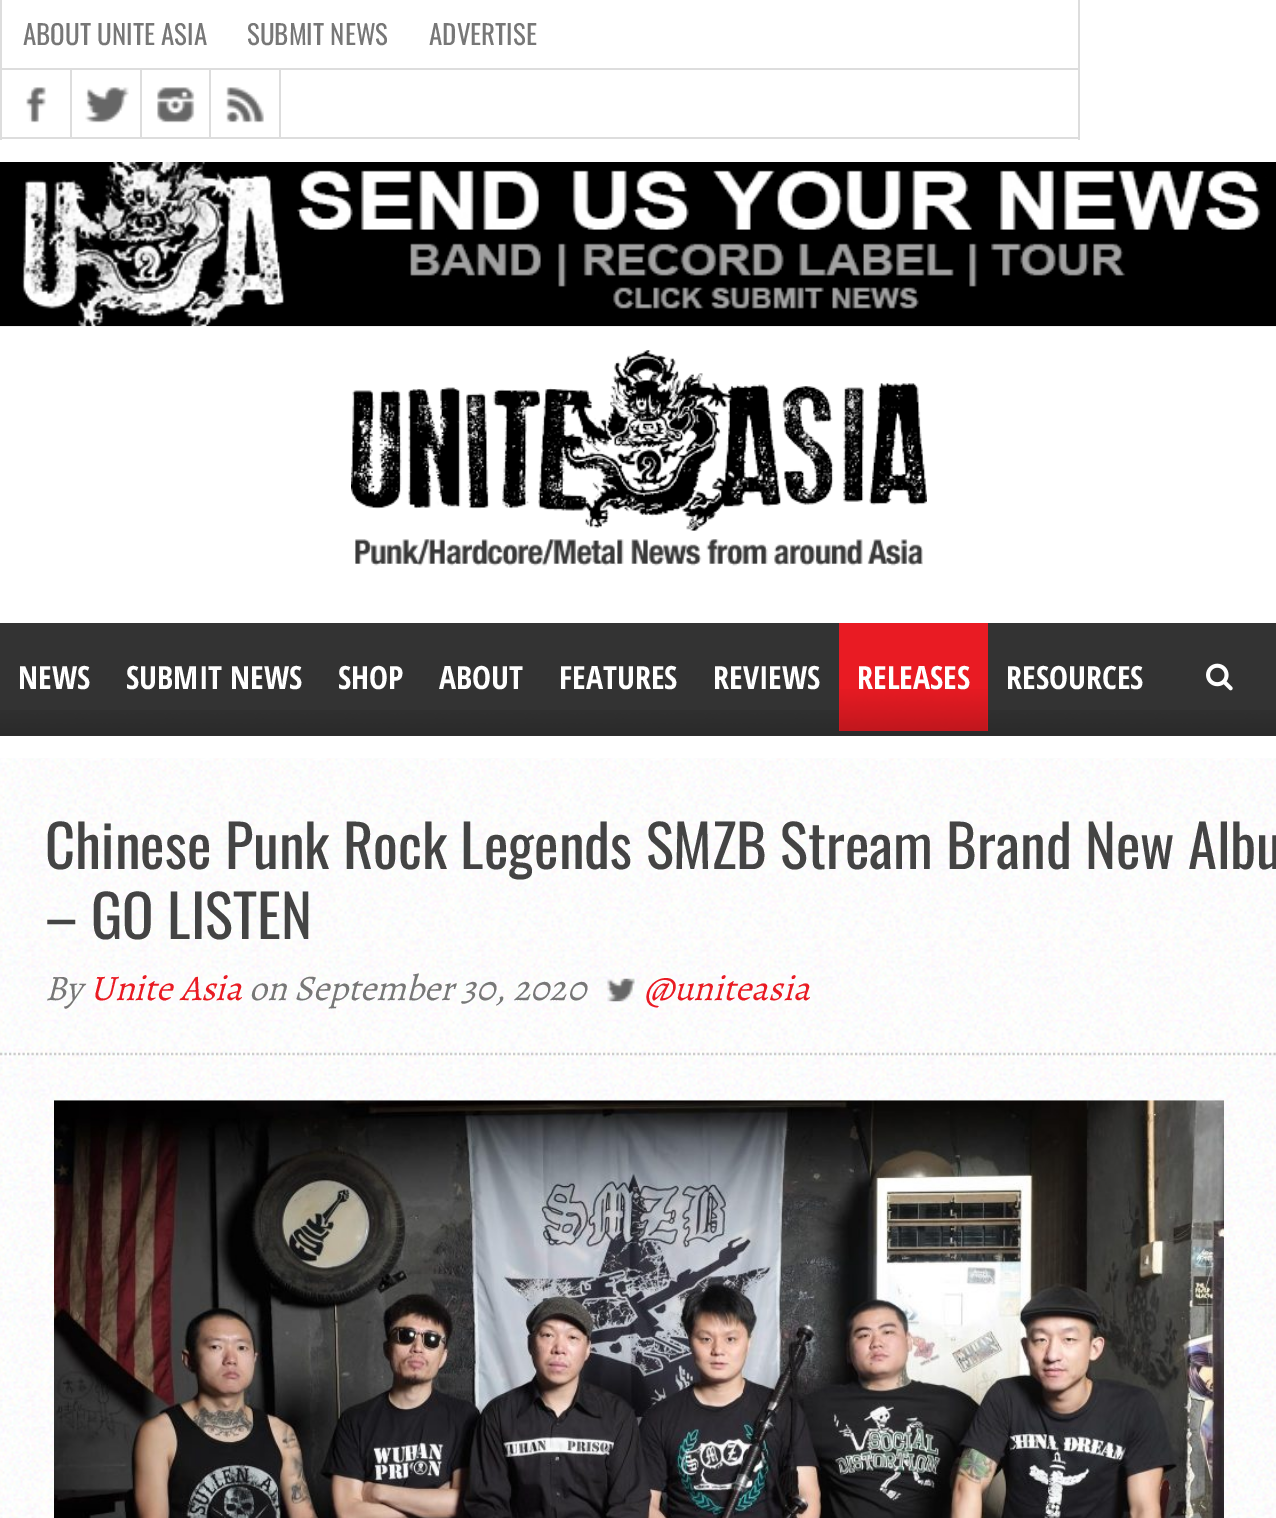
%!PS
<< /PageSize [1276 1518] >> setpagedevice
/picture { 5 dict begin { /h /w /y /x /name } { exch def } forall
  gsave x y translate w h scale
  w h 8 [w 0 0 h 0 0] name (r) file false 3 colorimage grestore end } def
0 1518 translate 1 -1 scale
4 setmiterlimit
1 setgray
0 0 1276 1518 rectfill
0.867 setgray
1078 0 2 140 rectfill
0 137 1080 2 rectfill
0 0 2 140 rectfill
/Oswald-Regular [27 0 0 -27 0 0] selectfont
0.467 setgray
23 45 moveto (ABOUT UNITE ASIA) show
247 45 moveto (SUBMIT NEWS) show
429 45 moveto (ADVERTISE) show
0.867 setgray
2 68 1076 2 rectfill
(img1.rgb) 26 87 20 36 picture
70 70 2 67 rectfill
(img2.rgb) 85 87 44 36 picture
140 70 2 67 rectfill
(img3.rgb) 157 87 38 36 picture
279 70 2 67 rectfill
209 70 2 67 rectfill
(img4.rgb) 226 87 38 36 picture
(img5.rgb) 0 162 1276 165 picture
(img6.rgb) 351 350 576 216 picture
0.2 setgray
0 623 1276 113 rectfill
(img7.rgb) 0 710 1276 26 picture
/OpenSansCondensed-Bold [32 0 0 -32 0 0] selectfont
1 setgray
18 689 moveto (NEWS) show
126 689 moveto (SUBMIT NEWS) show
338 689 moveto (SHOP) show
439 689 moveto (ABOUT) show
559 689 moveto (FEATURES) show
713 689 moveto (REVIEWS) show
0.914 0.106 0.137 setrgbcolor
839 623 149 108 rectfill
(img8.rgb) 839 689 149 42 picture
1 setgray
857 689 moveto (RELEASES) show
1006 689 moveto (RESOURCES) show
(img9.rgb) 1206 663 27 28 picture
(img10.rgb) 0 758 1276 760 picture
0.8 setgray
2.2 setlinewidth
[2.25 2.25] 0 setdash
newpath 0 1054 moveto 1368 1054 lineto stroke
/Oswald-Regular [58.5 0 0 -58.5 0 0] selectfont
0.267 setgray
45 869 moveto (Chinese Punk Rock Legends SMZB Stream Brand New Albu) show
45 939 moveto (– GO LISTEN) show
/Alegreya-Italic [36 0 0 -36 0 0] selectfont
0.467 setgray
45 1000 moveto (By) show
0.914 0.106 0.137 setrgbcolor
90 1000 moveto (Unite Asia) show
0.467 setgray
249 1000 moveto (on September 30, 2020) show
(img11.rgb) 607 978 28 24 picture
0.914 0.106 0.137 setrgbcolor
644 1000 moveto (@uniteasia) show
(img12.rgb) 54 1100 1170 418 picture
showpage
